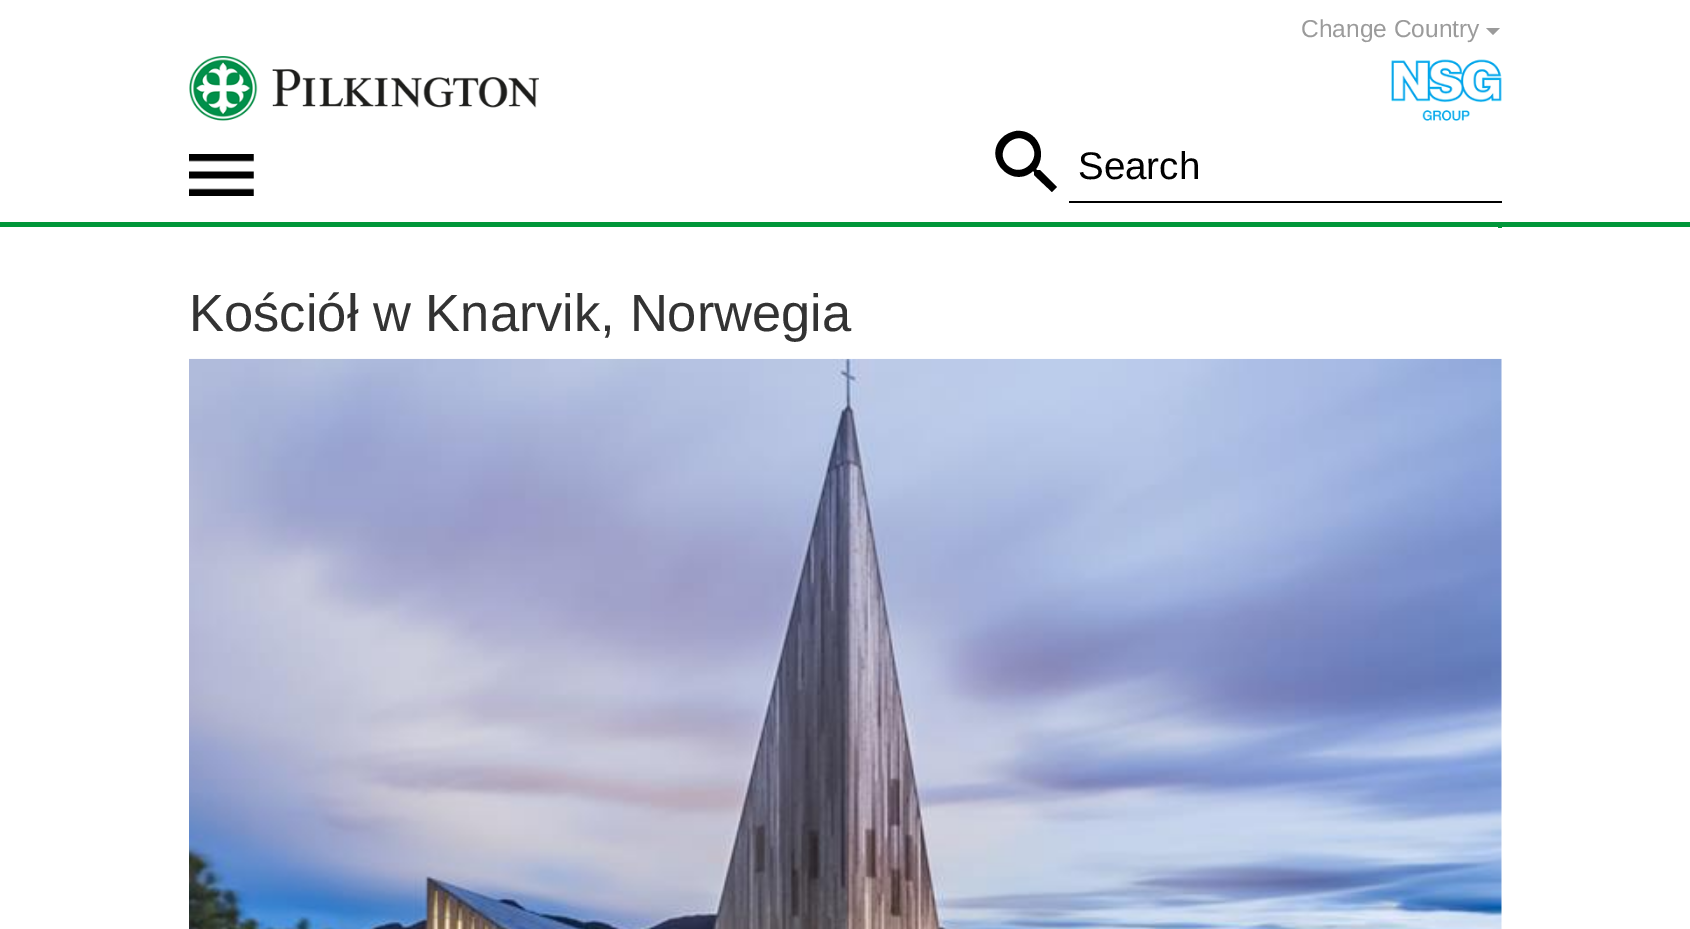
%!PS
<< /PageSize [1690 929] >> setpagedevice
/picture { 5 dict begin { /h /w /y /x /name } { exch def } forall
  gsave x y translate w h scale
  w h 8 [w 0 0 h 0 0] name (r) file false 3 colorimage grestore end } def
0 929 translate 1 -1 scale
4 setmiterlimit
1 setgray
0 0 1690 929 rectfill
/LiberationSans-Regular [24.5 0 0 -24.5 0 0] selectfont
0.608 setgray
1301 37 moveto (Change Country) show
newpath 1486 28 moveto 1500 28 lineto 1493 35 lineto closepath fill
(img1.rgb) 189 56 350 65 picture
(img2.rgb) 1391 59 111 62 picture
(img3.rgb) 189 154 65 42 picture
0 setgray
newpath 1007 165 moveto 1022 180 1044 158 1030 143 curveto 1015 128 993 151 1007 165 curveto closepath 1040 170 moveto 1057 187 lineto 1052 192 lineto 1034 175 lineto 1034 172 lineto 1033 171 lineto 1012 190 982 158 1002 138 curveto 1006 134 1011 132 1016 131 curveto 1037 129 1048 153 1036 169 curveto 1037 170 lineto closepath fill
/LiberationSans-Regular [38.5 0 0 -38.5 0 0] selectfont
1078 179 moveto (Search) show
1069 201 433 2 rectfill
0 0.588 0.224 setrgbcolor
1498 227 4 1 rectfill
0 222 1690 5 rectfill
/LiberationSans-Regular [52.5 0 0 -52.5 0 0] selectfont
0.2 setgray
189 331 moveto (Kościół w Knarvik, Norwegia) show
(img4.rgb) 189 358 1313 571 picture
showpage
